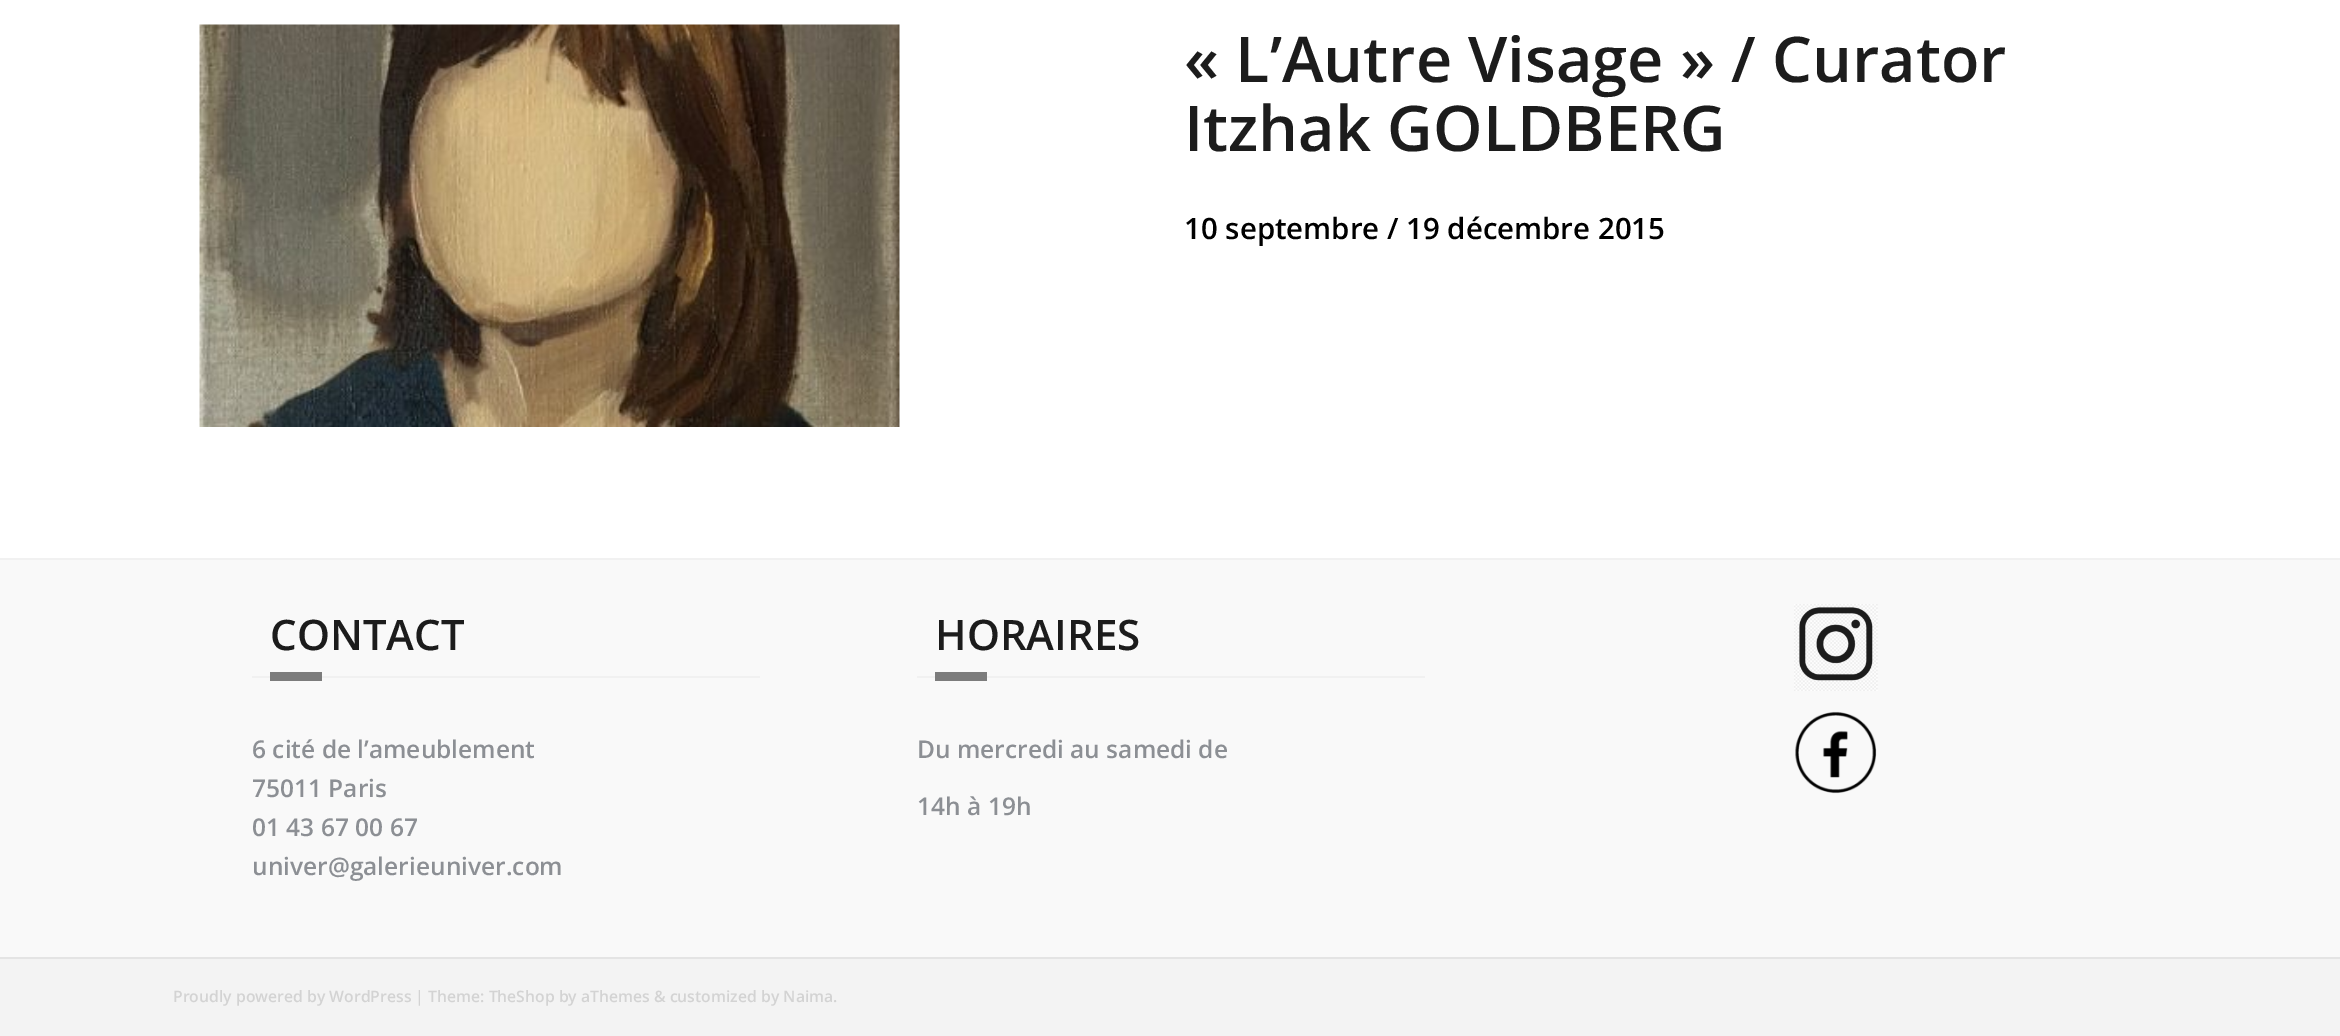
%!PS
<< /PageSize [2340 1036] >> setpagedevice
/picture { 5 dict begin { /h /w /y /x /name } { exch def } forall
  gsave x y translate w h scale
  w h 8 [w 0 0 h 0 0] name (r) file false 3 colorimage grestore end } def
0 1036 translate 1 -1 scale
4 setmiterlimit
1 setgray
0 0 2340 1036 rectfill
(img1.rgb) 199 24 701 403 picture
/OpenSans-SemiBold [63 0 0 -63 0 0] selectfont
0.11 setgray
1184 82 moveto (« L’Autre Visage » / Curator) show
1184 151 moveto (Itzhak GOLDBERG) show
/OpenSans-SemiBold [29.4 0 0 -29.4 0 0] selectfont
0 setgray
1184 239 moveto (10 septembre / 19 décembre 2015) show
0.976 setgray
0 560 2340 397 rectfill
0.945 setgray
0 558 2340 2 rectfill
252 676 508 2 rectfill
/OpenSans-SemiBold [42 0 0 -42 0 0] selectfont
0.11 setgray
270 650 moveto (CONTACT) show
0.486 setgray
270 672 52 9 rectfill
/OpenSans-SemiBold [24.5 0 0 -24.5 0 0] selectfont
0.549 0.561 0.58 setrgbcolor
252 758 moveto (6 cité de l’ameublement) show
252 797 moveto (75011 Paris) show
252 836 moveto (01 43 67 00 67) show
252 875 moveto (univer@galerieuniver.com) show
0.945 setgray
917 676 508 2 rectfill
/OpenSans-SemiBold [42 0 0 -42 0 0] selectfont
0.11 setgray
935 650 moveto (HORAIRES) show
0.486 setgray
935 672 52 9 rectfill
/OpenSans-SemiBold [24.5 0 0 -24.5 0 0] selectfont
0.549 0.561 0.58 setrgbcolor
917 758 moveto (Du mercredi au samedi de) show
917 815 moveto (14h à 19h) show
(img2.rgb) 1794 604 84 87 picture
(img3.rgb) 1795 711 82 83 picture
0.953 setgray
0 959 2340 77 rectfill
0.894 setgray
0 957 2340 2 rectfill
/OpenSans-SemiBold [15.75 0 0 -15.75 0 0] selectfont
0.827 setgray
173 1002 moveto (Proudly powered by WordPress | Theme: TheShop by aThemes & customized by Naima.) show
showpage
